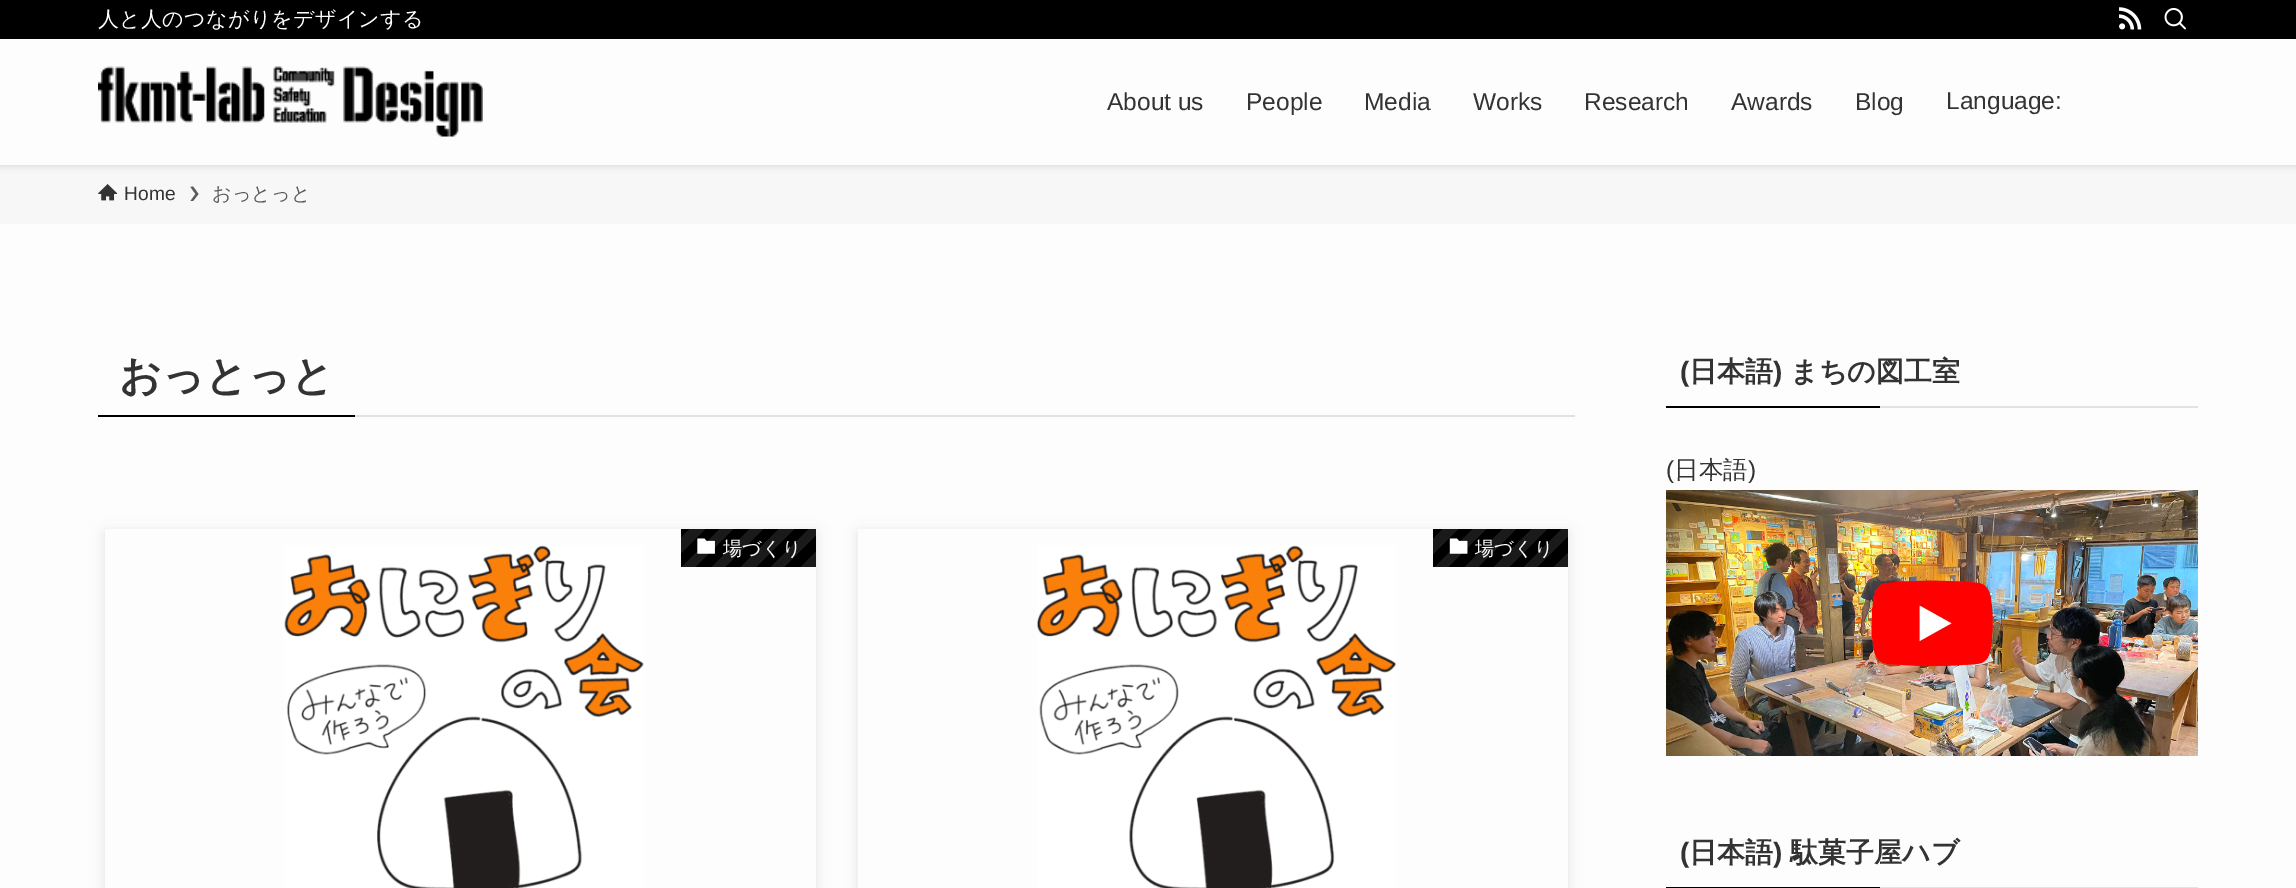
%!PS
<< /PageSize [2296 888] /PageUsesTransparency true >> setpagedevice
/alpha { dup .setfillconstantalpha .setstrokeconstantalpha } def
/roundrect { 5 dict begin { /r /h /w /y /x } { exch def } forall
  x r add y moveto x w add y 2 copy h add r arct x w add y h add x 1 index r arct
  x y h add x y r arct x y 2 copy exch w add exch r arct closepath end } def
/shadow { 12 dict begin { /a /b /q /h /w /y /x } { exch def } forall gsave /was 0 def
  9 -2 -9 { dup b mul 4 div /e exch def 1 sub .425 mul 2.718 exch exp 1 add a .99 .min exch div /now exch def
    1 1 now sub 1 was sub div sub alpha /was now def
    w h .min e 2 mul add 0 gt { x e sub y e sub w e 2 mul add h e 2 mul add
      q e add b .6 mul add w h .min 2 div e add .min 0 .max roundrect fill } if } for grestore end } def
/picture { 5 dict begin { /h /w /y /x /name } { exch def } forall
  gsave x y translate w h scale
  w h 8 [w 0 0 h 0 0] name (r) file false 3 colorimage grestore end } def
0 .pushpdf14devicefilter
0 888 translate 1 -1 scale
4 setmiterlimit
0.992 setgray
0 0 2296 888 rectfill
0.969 setgray
0 165 2296 59 rectfill
0 setgray
0 2 2296 164 0 3.5 0.12 shadow
0.992 setgray
0 39 2296 126 rectfill
0 setgray
0 0 2296 39 rectfill
/WenQuanYiZenHei-Medium [21 0 0 -21 0 0] selectfont
1 setgray
98 26 moveto 0.3 0 (人と人のつながりをデザインする) ashow
(img1.rgb) 2119 7 23 23 picture
(img2.rgb) 2164 8 22 22 picture
(img3.rgb) 98 66 385 71 picture
/LiberationSans-Regular [24.5 0 0 -24.5 0 0] selectfont
0.2 setgray
1107 110 moveto (About us) show
1246 110 moveto (People) show
1364 110 moveto (Media) show
1473 110 moveto (Works) show
1584 110 moveto (Research) show
1731 110 moveto (Awards) show
1855 110 moveto (Blog) show
1946 109 moveto (Language:) show
(img4.rgb) 98 184 20 17 picture
/LiberationSans-Regular [19.25 0 0 -19.25 0 0] selectfont
124 200 moveto (Home) show
0.353 setgray
newpath 193 186.5 moveto 190.5 187 lineto 195.5 194 lineto 190.5 201 lineto 193 201 lineto 198.5 194 lineto closepath fill
/WenQuanYiZenHei-Medium [19.25 0 0 -19.25 0 0] selectfont
212 200 moveto (おっとっと) show
0.886 setgray
355 415 1220 2 rectfill
0 setgray
98 415 257 2 rectfill
/WenQuanYiZenHei-Bold [42 0 0 -42 0 0] selectfont
0.2 setgray
119 390 moveto (おっとっと) show
gsave
newpath 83 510 moveto 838 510 lineto 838 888 lineto 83 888 lineto closepath 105 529 moveto 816 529 lineto 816 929 lineto 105 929 lineto closepath eoclip newpath
0 setgray
105 532 711 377 0 7 0.1 shadow
grestore
(img5.rgb) 284 545 360 343 picture
gsave newpath 681 529 moveto 816 529 lineto 816 567 lineto 681 567 lineto closepath clip newpath
<< /ShadingType 2 /ColorSpace /DeviceRGB /Coords [791 591 702 502] /Extend [true true] /Function << /FunctionType 3 /Domain [0 1] /Functions [<< /FunctionType 2 /Domain [0 1] /C0 [0.102 0.102 0.102] /C1 [0.102 0.102 0.102] /N 1 >> << /FunctionType 2 /Domain [0 1] /C0 [0 0 0] /C1 [0 0 0] /N 1 >> << /FunctionType 2 /Domain [0 1] /C0 [0.102 0.102 0.102] /C1 [0.102 0.102 0.102] /N 1 >> << /FunctionType 2 /Domain [0 1] /C0 [0 0 0] /C1 [0 0 0] /N 1 >> << /FunctionType 2 /Domain [0 1] /C0 [0.102 0.102 0.102] /C1 [0.102 0.102 0.102] /N 1 >> << /FunctionType 2 /Domain [0 1] /C0 [0 0 0] /C1 [0 0 0] /N 1 >> << /FunctionType 2 /Domain [0 1] /C0 [0.102 0.102 0.102] /C1 [0.102 0.102 0.102] /N 1 >> << /FunctionType 2 /Domain [0 1] /C0 [0 0 0] /C1 [0 0 0] /N 1 >> << /FunctionType 2 /Domain [0 1] /C0 [0.102 0.102 0.102] /C1 [0.102 0.102 0.102] /N 1 >> << /FunctionType 2 /Domain [0 1] /C0 [0 0 0] /C1 [0 0 0] /N 1 >> << /FunctionType 2 /Domain [0 1] /C0 [0.102 0.102 0.102] /C1 [0.102 0.102 0.102] /N 1 >> << /FunctionType 2 /Domain [0 1] /C0 [0 0 0] /C1 [0 0 0] /N 1 >>] /Bounds [0.08 0.17 0.25 0.33 0.42 0.5 0.58 0.67 0.75 0.83 0.92] /Encode [0 1 0 1 0 1 0 1 0 1 0 1 0 1 0 1 0 1 0 1 0 1 0 1] >> >> shfill grestore
(img6.rgb) 697 538 18 16 picture
/WenQuanYiZenHei-Medium [19.25 0 0 -19.25 0 0] selectfont
1 setgray
723 555 moveto (場づくり) show
gsave
newpath 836 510 moveto 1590 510 lineto 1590 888 lineto 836 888 lineto closepath 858 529 moveto 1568 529 lineto 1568 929 lineto 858 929 lineto closepath eoclip newpath
0 setgray
858 532 710 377 0 7 0.1 shadow
grestore
(img7.rgb) 1037 545 359 343 picture
gsave newpath 1433 529 moveto 1568 529 lineto 1568 567 lineto 1433 567 lineto closepath clip newpath
<< /ShadingType 2 /ColorSpace /DeviceRGB /Coords [1544 591 1455 502] /Extend [true true] /Function << /FunctionType 3 /Domain [0 1] /Functions [<< /FunctionType 2 /Domain [0 1] /C0 [0.102 0.102 0.102] /C1 [0.102 0.102 0.102] /N 1 >> << /FunctionType 2 /Domain [0 1] /C0 [0 0 0] /C1 [0 0 0] /N 1 >> << /FunctionType 2 /Domain [0 1] /C0 [0.102 0.102 0.102] /C1 [0.102 0.102 0.102] /N 1 >> << /FunctionType 2 /Domain [0 1] /C0 [0 0 0] /C1 [0 0 0] /N 1 >> << /FunctionType 2 /Domain [0 1] /C0 [0.102 0.102 0.102] /C1 [0.102 0.102 0.102] /N 1 >> << /FunctionType 2 /Domain [0 1] /C0 [0 0 0] /C1 [0 0 0] /N 1 >> << /FunctionType 2 /Domain [0 1] /C0 [0.102 0.102 0.102] /C1 [0.102 0.102 0.102] /N 1 >> << /FunctionType 2 /Domain [0 1] /C0 [0 0 0] /C1 [0 0 0] /N 1 >> << /FunctionType 2 /Domain [0 1] /C0 [0.102 0.102 0.102] /C1 [0.102 0.102 0.102] /N 1 >> << /FunctionType 2 /Domain [0 1] /C0 [0 0 0] /C1 [0 0 0] /N 1 >> << /FunctionType 2 /Domain [0 1] /C0 [0.102 0.102 0.102] /C1 [0.102 0.102 0.102] /N 1 >> << /FunctionType 2 /Domain [0 1] /C0 [0 0 0] /C1 [0 0 0] /N 1 >>] /Bounds [0.08 0.17 0.25 0.33 0.42 0.5 0.58 0.67 0.75 0.83 0.92] /Encode [0 1 0 1 0 1 0 1 0 1 0 1 0 1 0 1 0 1 0 1 0 1 0 1] >> >> shfill grestore
(img8.rgb) 1449 538 19 16 picture
1475 555 moveto (場づくり) show
/LiberationSans-Bold [28 0 0 -28 0 0] selectfont
0.2 setgray
1680 381 moveto (\() show
/WenQuanYiZenHei-Bold [28 0 0 -28 0 0] selectfont
1689 381 moveto (日本語) show
/LiberationSans-Bold [28 0 0 -28 0 0] selectfont
1773 381 moveto (\)) show
/WenQuanYiZenHei-Bold [28 0 0 -28 0 0] selectfont
1790 381 moveto (まちの図工室) show
0 setgray
1666 406 214 2 rectfill
0.886 setgray
1880 406 318 2 rectfill
/LiberationSans-Regular [24.5 0 0 -24.5 0 0] selectfont
0.2 setgray
1666 478 moveto (\() show
/WenQuanYiZenHei-Medium [24.5 0 0 -24.5 0 0] selectfont
1674 478 moveto (日本語) show
/LiberationSans-Regular [24.5 0 0 -24.5 0 0] selectfont
1748 478 moveto (\)) show
(img9.rgb) 1666 490 532 266 picture
/LiberationSans-Bold [28 0 0 -28 0 0] selectfont
1680 862 moveto (\() show
/WenQuanYiZenHei-Bold [28 0 0 -28 0 0] selectfont
1689 862 moveto (日本語) show
/LiberationSans-Bold [28 0 0 -28 0 0] selectfont
1773 862 moveto (\)) show
/WenQuanYiZenHei-Bold [28 0 0 -28 0 0] selectfont
1790 862 moveto (駄菓子屋ハブ) show
0 setgray
1666 887 214 1 rectfill
0.886 setgray
1880 887 318 1 rectfill
.poppdf14devicefilter showpage
